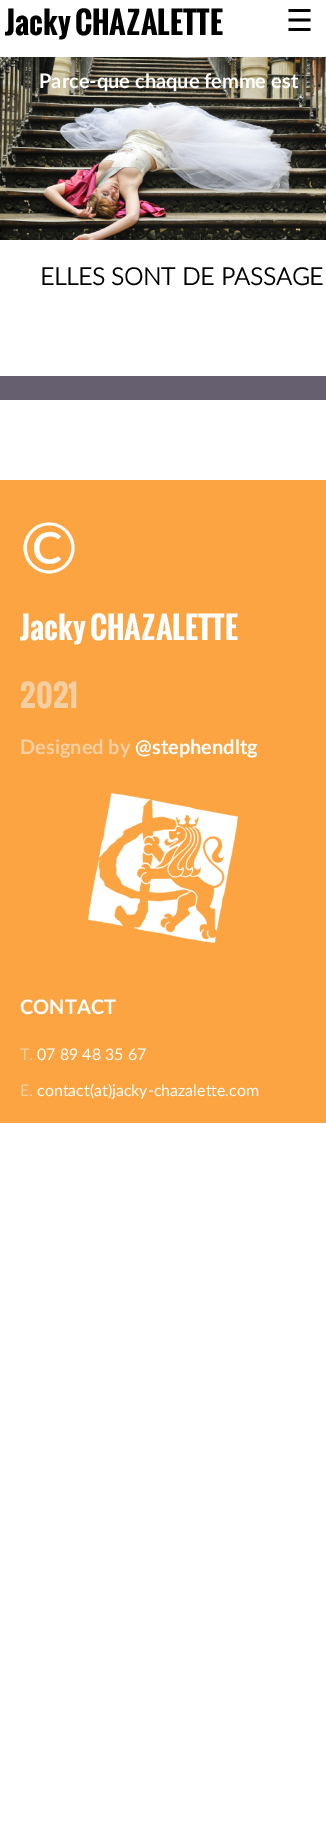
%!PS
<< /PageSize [326 1833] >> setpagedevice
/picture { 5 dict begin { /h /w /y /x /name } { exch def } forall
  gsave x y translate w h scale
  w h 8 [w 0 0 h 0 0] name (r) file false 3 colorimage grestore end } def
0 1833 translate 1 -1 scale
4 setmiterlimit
1 setgray
0 0 326 1833 rectfill
/Oswald-Bold [30 0 0 -30 0 0] selectfont
0 setgray
5 35 moveto (Jacky CHAZALETTE) show
/DejaVuSans-Regular [30 0 0 -30 0 0] selectfont
286 31 moveto (☰) show
(img1.rgb) 0 57 326 183 picture
/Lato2-Bold [20 0 0 -20 0 0] selectfont
1 setgray
39 88 moveto (Parce-que chaque femme est) show
/Lato-Bold [24 0 0 -24 0 0] selectfont
0 setgray
40 285 moveto (ELLES SONT DE PASSAGE) show
0.4 0.373 0.435 setrgbcolor
0 376 326 24 rectfill
0.984 0.643 0.255 setrgbcolor
0 480 326 643 rectfill
/Lato-Regular [70 0 0 -70 0 0] selectfont
1 setgray
20 573 moveto (©) show
/Oswald-Bold [30 0 0 -30 0 0] selectfont
20 640 moveto (Jacky CHAZALETTE) show
0.953 0.812 0.631 setrgbcolor
20 708 moveto (2021) show
/Lato2-Bold [20 0 0 -20 0 0] selectfont
20 754 moveto (Designed by) show
1 setgray
135 754 moveto (@stephendltg) show
(img2.rgb) 88 793 150 150 picture
20 1014 moveto (CONTACT) show
/Lato-Regular [16 0 0 -16 0 0] selectfont
0.953 0.812 0.631 setrgbcolor
20 1060 moveto (T.) show
1 setgray
37 1060 moveto (07 89 48 35 67) show
0.953 0.812 0.631 setrgbcolor
20 1096 moveto (E.) show
1 setgray
37 1096 moveto (contact\(at\)jacky-chazalette.com) show
showpage
